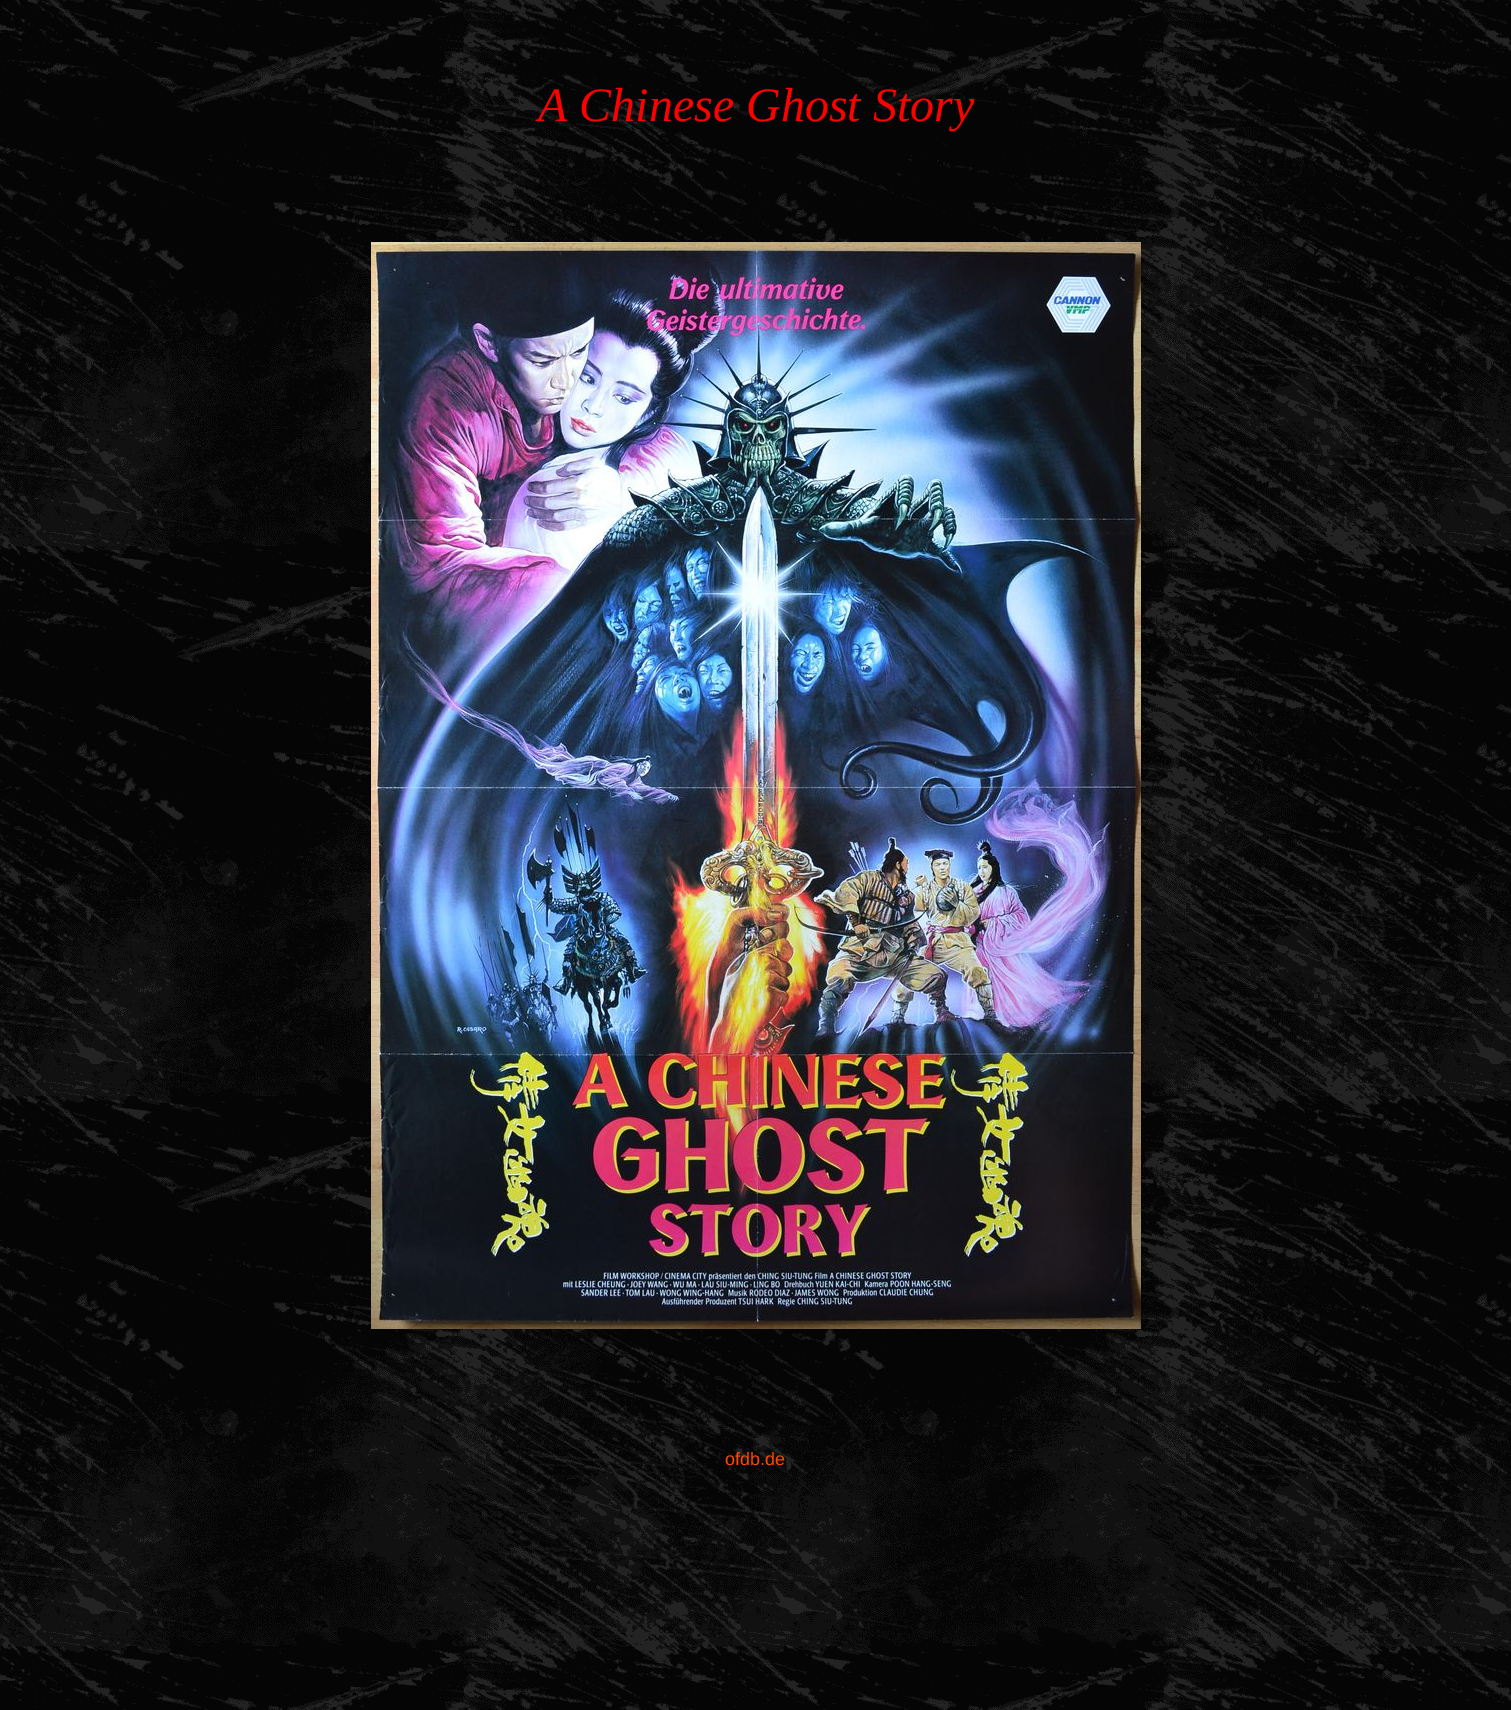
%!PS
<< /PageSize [1511 1710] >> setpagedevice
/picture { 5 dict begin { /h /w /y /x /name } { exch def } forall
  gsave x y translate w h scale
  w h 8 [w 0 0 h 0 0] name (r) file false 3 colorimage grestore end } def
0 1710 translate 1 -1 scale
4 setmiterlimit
1 setgray
0 0 1511 1710 rectfill
(img1.rgb) 0 0 1511 1710 picture
/LiberationSerif-Italic [48 0 0 -48 0 0] selectfont
1 0 0 setrgbcolor
538 121 moveto (A Chinese Ghost Story) show
(img2.rgb) 371 242 770 1087 picture
/LiberationSans-Regular [18 0 0 -18 0 0] selectfont
1 0.278 0 setrgbcolor
725 1465 moveto (ofdb.de) show
showpage
